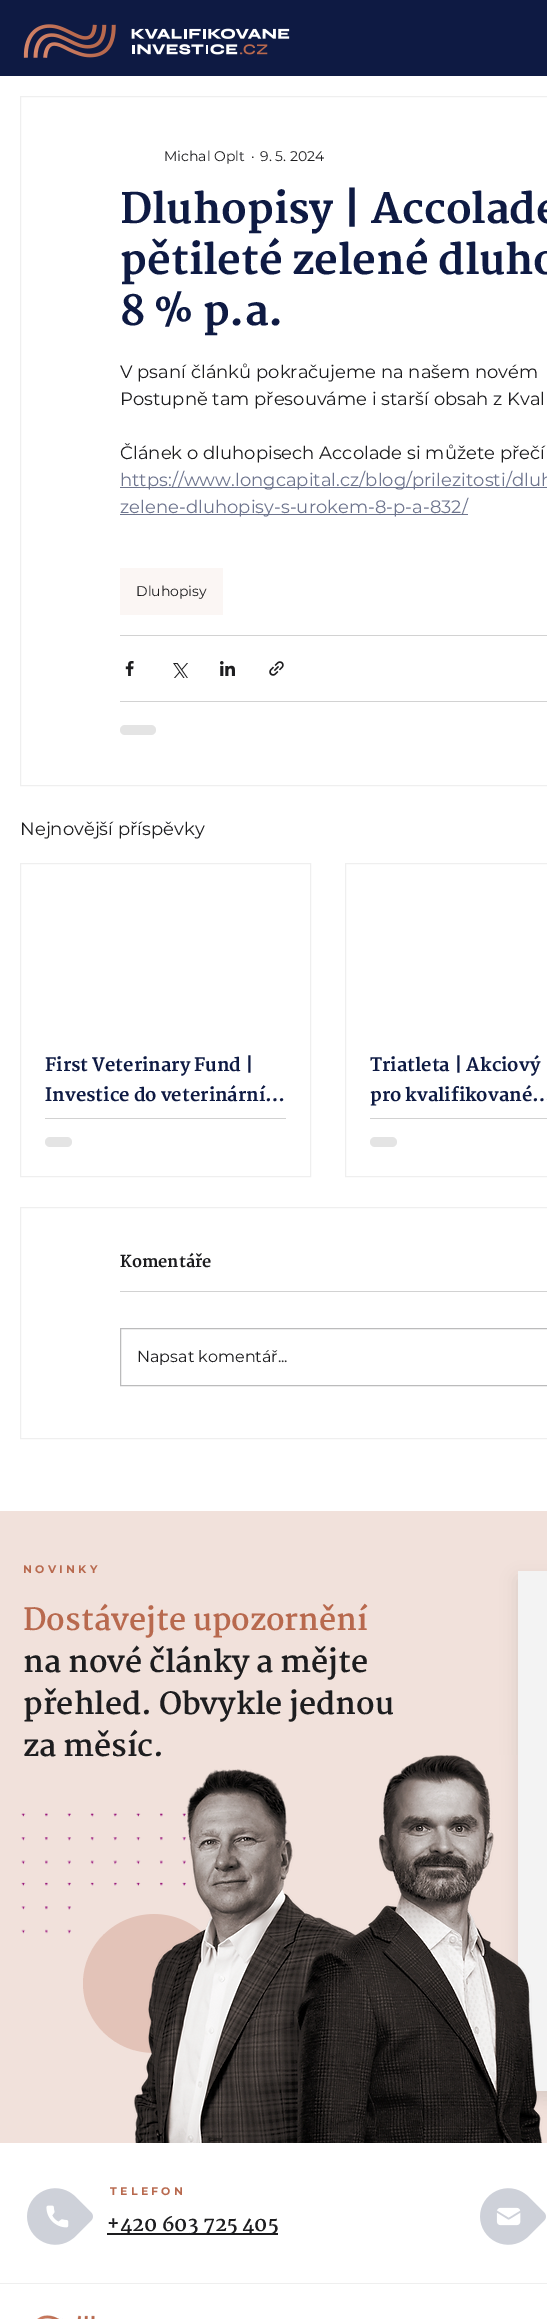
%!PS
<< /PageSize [547 2319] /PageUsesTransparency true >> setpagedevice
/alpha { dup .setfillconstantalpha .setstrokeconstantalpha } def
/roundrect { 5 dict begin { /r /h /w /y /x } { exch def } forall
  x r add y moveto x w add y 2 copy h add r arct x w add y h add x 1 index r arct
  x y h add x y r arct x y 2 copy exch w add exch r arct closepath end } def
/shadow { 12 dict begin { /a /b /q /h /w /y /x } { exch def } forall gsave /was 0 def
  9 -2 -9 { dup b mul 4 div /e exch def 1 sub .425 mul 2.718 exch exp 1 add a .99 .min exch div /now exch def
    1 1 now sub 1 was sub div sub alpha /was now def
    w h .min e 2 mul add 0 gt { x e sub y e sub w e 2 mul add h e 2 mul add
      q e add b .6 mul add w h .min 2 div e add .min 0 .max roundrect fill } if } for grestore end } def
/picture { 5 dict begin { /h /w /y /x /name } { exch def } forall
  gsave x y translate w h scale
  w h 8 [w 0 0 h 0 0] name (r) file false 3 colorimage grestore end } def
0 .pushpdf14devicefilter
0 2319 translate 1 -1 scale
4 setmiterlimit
1 setgray
0 0 547 2319 rectfill
0.055 0.102 0.263 setrgbcolor
0 0 547 76 rectfill
(img1.rgb) 23 24 267 34 picture
0.937 setgray
20.5 96.5 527 689 rectstroke
/Montserrat-Regular [14 0 0 -14 0 0] selectfont
0.114 0.114 0.122 setrgbcolor
164 161 moveto (Michal Oplt) show
251 161 moveto (·) show
260 161 moveto (9. 5. 2024) show
/Martel-ExtraBold [41 0 0 -41 0 0] selectfont
0.055 0.102 0.263 setrgbcolor
120 223 moveto (Dluhopisy | Accolade) show
120 274 moveto (pětileté zelené dluho) show
120 325 moveto (8 % p.a.) show
/Montserrat-Regular [18 0 0 -18 0 0] selectfont
0.114 0.114 0.122 setrgbcolor
120 378 moveto (V psaní článků pokračujeme na našem novém) show
120 405 moveto (Postupně tam přesouváme i starší obsah z Kval) show
120 459 moveto (Článek o dluhopisech Accolade si můžete přečí) show
0.431 0.459 0.557 setrgbcolor
120 487 427 1 rectfill
120 486 moveto (https://www.longcapital.cz/blog/prilezitosti/dluh) show
120 514 348 1 rectfill
120 513 moveto (zelene-dluhopisy-s-urokem-8-p-a-832/) show
0.984 0.965 0.957 setrgbcolor
120 568 103 47 rectfill
/Montserrat-Regular [14 0 0 -14 0 0] selectfont
0.114 0.114 0.122 setrgbcolor
136 596 moveto (Dluhopisy) show
0.824 setgray
120 635 427 1 rectfill
(img2.rgb) 125 661 9 15 picture
(img3.rgb) 173 663 15 15 picture
(img4.rgb) 220 661 15 15 picture
(img5.rgb) 269 661 15 15 picture
120 701 427 1 rectfill
0.894 setgray
120 725 36 10 5 roundrect fill
/Montserrat-Regular [18 0 0 -18 0 0] selectfont
0.114 0.114 0.122 setrgbcolor
20 835 moveto (Nejnovější příspěvky) show
0.937 setgray
20.5 863.5 290 313 rectstroke
/Martel-ExtraBold [18 0 0 -18 0 0] selectfont
0.055 0.102 0.263 setrgbcolor
45 1071 moveto (First Veterinary Fund |) show
45 1101 moveto (Investice do veterinární…) show
0.824 setgray
45 1118 241 1 rectfill
0.894 setgray
45 1137 27 10 5 roundrect fill
0.937 setgray
345.5 863.5 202 313 rectstroke
0.055 0.102 0.263 setrgbcolor
370 1071 moveto (Triatleta | Akciový) show
370 1101 moveto (pro kvalifikované…) show
0.824 setgray
370 1118 177 1 rectfill
0.894 setgray
370 1137 27 10 5 roundrect fill
0.937 setgray
20.5 1207.5 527 231 rectstroke
/Martel-ExtraBold [16 0 0 -16 0 0] selectfont
0.114 0.114 0.122 setrgbcolor
120 1267 moveto (Komentáře) show
0.824 setgray
120 1291 427 1 rectfill
0.733 0.733 0.737 setrgbcolor
120.5 1328.5 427 57 rectstroke
/Montserrat-Regular [16 0 0 -16 0 0] selectfont
0.114 0.114 0.122 setrgbcolor
137 1362 moveto (Napsat komentář...) show
0.945 0.882 0.859 setrgbcolor
0 1511 547 632 rectfill
/Montserrat-Bold [11 0 0 -11 0 0] selectfont
0.722 0.412 0.306 setrgbcolor
23 1573 moveto 3.25 0 (NOVINKY) ashow
0 setgray
518 1579 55 520 0 8.5 0.1 shadow
0.953 setgray
518 1571 29 520 rectfill
/Martel-Bold [30 0 0 -30 0 0] selectfont
0.722 0.412 0.306 setrgbcolor
23 1630 moveto (Dostávejte upozornění) show
0.114 0.114 0.122 setrgbcolor
23 1672 moveto (na nové články a mějte) show
23 1714 moveto (přehled. Obvykle jednou) show
23 1756 moveto (za měsíc.) show
0.89 0.765 0.722 setrgbcolor
newpath 154 1914 moveto 193 1914 225 1945 225 1983.5 curveto 225 2022 193 2053 154 2053 curveto 115 2053 83 2022 83 1983.5 curveto 83 1945 115 1914 154 1914 curveto closepath fill
(img6.rgb) 21 1813 165 121 picture
(img7.rgb) 134 1755 409 388 picture
(img8.rgb) 27 2188 66 57 picture
/Montserrat-Bold [11 0 0 -11 0 0] selectfont
0.722 0.412 0.306 setrgbcolor
110 2195 moveto 3.25 0 (TELEFON) ashow
(img9.rgb) 480 2188 66 57 picture
0.114 0.114 0.122 setrgbcolor
107 2233 171 2 rectfill
/Martel-Bold [20 0 0 -20 0 0] selectfont
107 2231 moveto (+420 603 725 405) show
0.937 setgray
0 2283 547 1 rectfill
(img10.rgb) 37 2315 58 4 picture
.poppdf14devicefilter showpage
